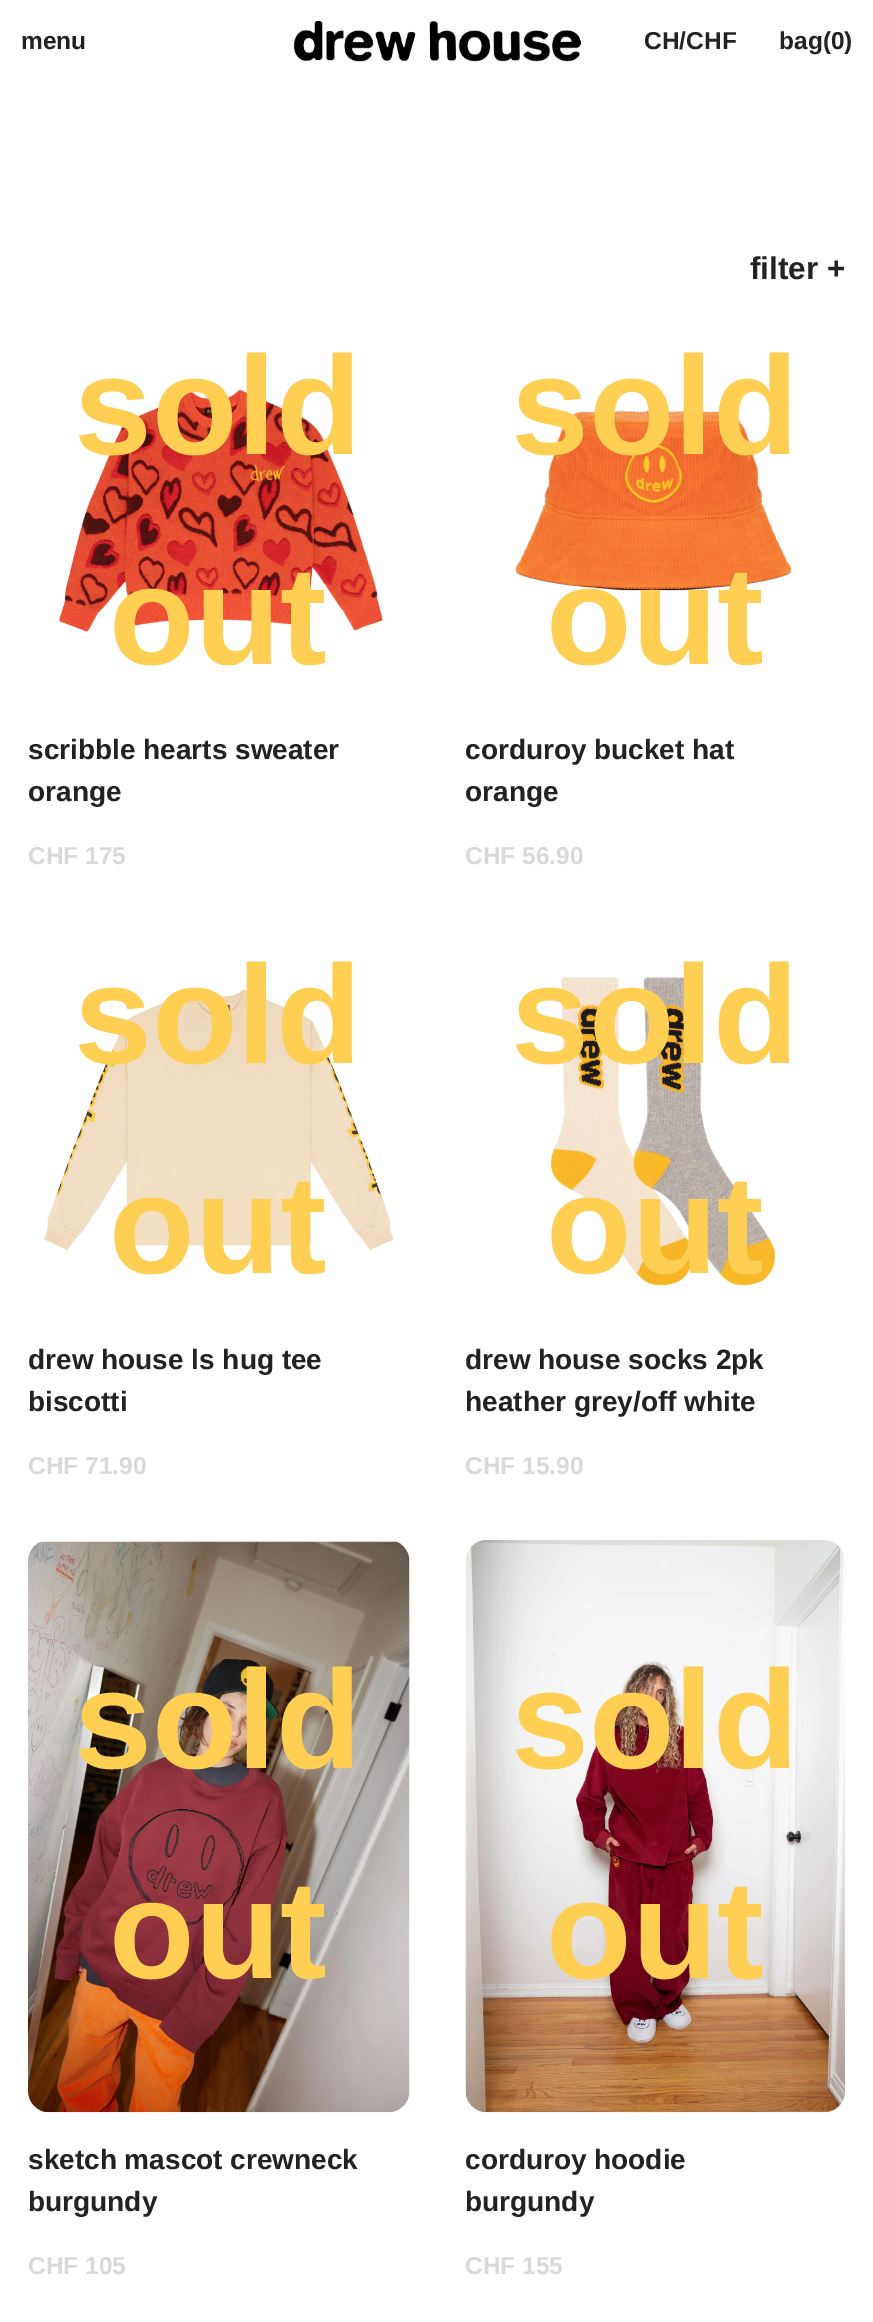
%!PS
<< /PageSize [873 2322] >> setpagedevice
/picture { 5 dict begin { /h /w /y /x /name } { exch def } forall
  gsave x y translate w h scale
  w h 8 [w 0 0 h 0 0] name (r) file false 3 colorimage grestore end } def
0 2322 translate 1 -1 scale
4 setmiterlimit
1 setgray
0 0 873 2322 rectfill
/LiberationSans-Bold [24.5 0 0 -24.5 0 0] selectfont
0.133 setgray
21 49 moveto (menu) show
(img1.rgb) 293 21 288 41 picture
644 49 moveto (CH/CHF) show
779 49 moveto (bag\(0\)) show
/LiberationSans-Bold [31.5 0 0 -31.5 0 0] selectfont
750 279 moveto (filter +) show
(img2.rgb) 59 389 324 244 picture
/LiberationSans-Bold [140 0 0 -140 0 0] selectfont
1 0.812 0.325 setrgbcolor
74 454 moveto (sold) show
109 664 moveto (out) show
/LiberationSans-Bold [28 0 0 -28 0 0] selectfont
0.133 setgray
28 759 moveto (scribble hearts sweater) show
28 801 moveto (orange) show
/LiberationSans-Bold [24.5 0 0 -24.5 0 0] selectfont
0.851 setgray
28 864 moveto (CHF 175) show
(img3.rgb) 515 410 277 181 picture
/LiberationSans-Bold [140 0 0 -140 0 0] selectfont
1 0.812 0.325 setrgbcolor
511 454 moveto (sold) show
546 664 moveto (out) show
/LiberationSans-Bold [28 0 0 -28 0 0] selectfont
0.133 setgray
465 759 moveto (corduroy bucket hat) show
465 801 moveto (orange) show
/LiberationSans-Bold [24.5 0 0 -24.5 0 0] selectfont
0.851 setgray
465 864 moveto (CHF 56.90) show
(img4.rgb) 43 989 352 262 picture
/LiberationSans-Bold [140 0 0 -140 0 0] selectfont
1 0.812 0.325 setrgbcolor
74 1063 moveto (sold) show
109 1273 moveto (out) show
/LiberationSans-Bold [28 0 0 -28 0 0] selectfont
0.133 setgray
28 1369 moveto (drew house ls hug tee) show
28 1411 moveto (biscotti) show
/LiberationSans-Bold [24.5 0 0 -24.5 0 0] selectfont
0.851 setgray
28 1474 moveto (CHF 71.90) show
(img5.rgb) 550 977 226 310 picture
/LiberationSans-Bold [140 0 0 -140 0 0] selectfont
1 0.812 0.325 setrgbcolor
511 1063 moveto (sold) show
546 1273 moveto (out) show
/LiberationSans-Bold [28 0 0 -28 0 0] selectfont
0.133 setgray
465 1369 moveto (drew house socks 2pk) show
465 1411 moveto (heather grey/off white) show
/LiberationSans-Bold [24.5 0 0 -24.5 0 0] selectfont
0.851 setgray
465 1474 moveto (CHF 15.90) show
(img6.rgb) 28 1541 382 572 picture
/LiberationSans-Bold [140 0 0 -140 0 0] selectfont
1 0.812 0.325 setrgbcolor
74 1768 moveto (sold) show
109 1978 moveto (out) show
/LiberationSans-Bold [28 0 0 -28 0 0] selectfont
0.133 setgray
28 2169 moveto (sketch mascot crewneck) show
28 2211 moveto (burgundy) show
/LiberationSans-Bold [24.5 0 0 -24.5 0 0] selectfont
0.851 setgray
28 2274 moveto (CHF 105) show
(img7.rgb) 465 1540 381 573 picture
/LiberationSans-Bold [140 0 0 -140 0 0] selectfont
1 0.812 0.325 setrgbcolor
511 1768 moveto (sold) show
546 1978 moveto (out) show
/LiberationSans-Bold [28 0 0 -28 0 0] selectfont
0.133 setgray
465 2169 moveto (corduroy hoodie) show
465 2211 moveto (burgundy) show
/LiberationSans-Bold [24.5 0 0 -24.5 0 0] selectfont
0.851 setgray
465 2274 moveto (CHF 155) show
showpage
